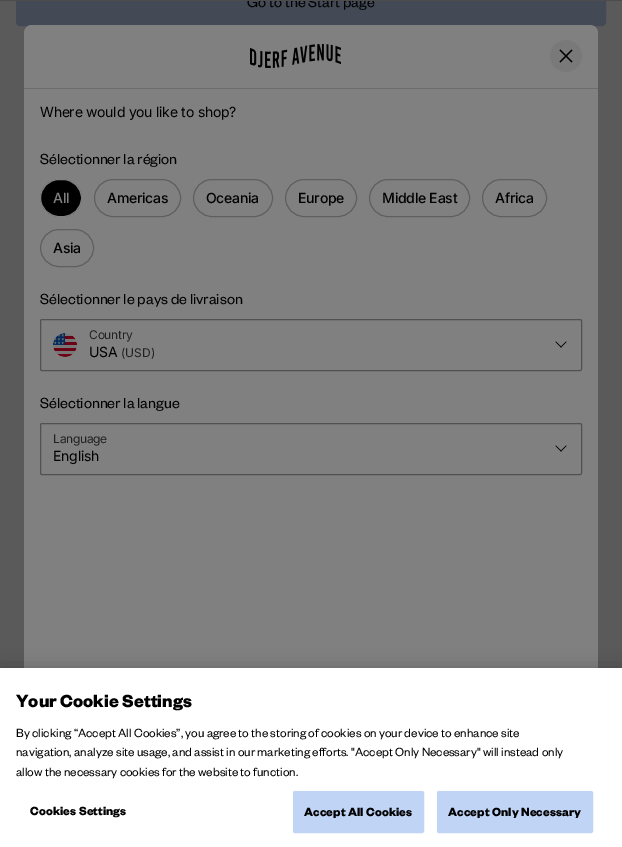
%!PS
<< /PageSize [622 847] /PageUsesTransparency true >> setpagedevice
/alpha { dup .setfillconstantalpha .setstrokeconstantalpha } def
/roundrect { 5 dict begin { /r /h /w /y /x } { exch def } forall
  x r add y moveto x w add y 2 copy h add r arct x w add y h add x 1 index r arct
  x y h add x y r arct x y 2 copy exch w add exch r arct closepath end } def
/shadow { 12 dict begin { /a /b /q /h /w /y /x } { exch def } forall gsave /was 0 def
  9 -2 -9 { dup b mul 4 div /e exch def 1 sub .425 mul 2.718 exch exp 1 add a .99 .min exch div /now exch def
    1 1 now sub 1 was sub div sub alpha /was now def
    w h .min e 2 mul add 0 gt { x e sub y e sub w e 2 mul add h e 2 mul add
      q e add b .6 mul add w h .min 2 div e add .min 0 .max roundrect fill } if } for grestore end } def
/picture { 5 dict begin { /h /w /y /x /name } { exch def } forall
  gsave x y translate w h scale
  w h 8 [w 0 0 h 0 0] name (r) file false 3 colorimage grestore end } def
0 .pushpdf14devicefilter
0 847 translate 1 -1 scale
4 setmiterlimit
0.353 setgray
0 0 622 847 rectfill
0.263 0.29 0.337 setrgbcolor
16.5 -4.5 589 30 3.5 roundrect gsave fill grestore
stroke
/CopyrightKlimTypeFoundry-Regular [16 0 0 -16 0 0] selectfont
0 setgray
247 7 moveto (Go to the Start page) show
0.298 setgray
0 0 622 1 rectfill
0.502 setgray
24 25 574 799 8 roundrect fill
0.424 setgray
24 88 574 1 rectfill
(img1.rgb) 250 44 91 24 picture
0.475 setgray
newpath 566 56 16 0 360 arc closepath fill
0 setgray
1.4 setlinewidth
newpath 560 62 moveto 572 50 lineto 560 50 moveto 572 62 lineto stroke
/Inter-Regular [14 0 0 -14 0 0] selectfont
40 117 moveto -0.25 0 (Where would you like to shop?) ashow
/CopyrightKlimTypeFoundry-Regular [16 0 0 -16 0 0] selectfont
40 164 moveto (Sélectionner la région) show
40.5 179.5 41 37 18.5 roundrect gsave fill grestore
0.502 setgray
1 setlinewidth
stroke
/Inter-Medium [14 0 0 -14 0 0] selectfont
53 203 moveto -0.25 0 (All) ashow
0.373 setgray
94.5 179.5 86 37 18.5 roundrect stroke
0 setgray
107 203 moveto -0.25 0 (Americas) ashow
0.373 setgray
193.5 179.5 79 37 18.5 roundrect stroke
0 setgray
206 203 moveto -0.25 0 (Oceania) ashow
0.373 setgray
285.5 179.5 71 37 18.5 roundrect stroke
0 setgray
298 203 moveto -0.25 0 (Europe) ashow
0.373 setgray
369.5 179.5 100 37 18.5 roundrect stroke
0 setgray
382 203 moveto -0.25 0 (Middle East) ashow
0.373 setgray
482.5 179.5 64 37 18.5 roundrect stroke
0 setgray
495 203 moveto -0.25 0 (Africa) ashow
0.373 setgray
40.5 229.5 53 37 18.5 roundrect stroke
0 setgray
53 253 moveto -0.25 0 (Asia) ashow
/CopyrightKlimTypeFoundry-Regular [16 0 0 -16 0 0] selectfont
40 304 moveto (Sélectionner le pays de livraison) show
0.318 setgray
40.5 319.5 541 51 1.5 roundrect stroke
(img2.rgb) 53 333 24 24 picture
/Inter-Regular [12 0 0 -12 0 0] selectfont
0.129 setgray
89 339 moveto -0.25 0 (Country) ashow
/Inter-Regular [14 0 0 -14 0 0] selectfont
0 setgray
89 357 moveto -0.25 0 (USA) ashow
/Inter-Regular [12 0 0 -12 0 0] selectfont
0.129 setgray
121 357 moveto (\(USD\)) show
0 setgray
newpath 556 341.5 moveto 561.5 347 lineto 561 347.5 lineto 555.5 342 lineto closepath fill
newpath 560.5 347 moveto 566 341.5 lineto 566.5 342 lineto 561 347.5 lineto closepath fill
/CopyrightKlimTypeFoundry-Regular [16 0 0 -16 0 0] selectfont
40 408 moveto (Sélectionner la langue) show
0.318 setgray
40.5 423.5 541 51 1.5 roundrect stroke
/Inter-Regular [12 0 0 -12 0 0] selectfont
0.129 setgray
53 443 moveto -0.25 0 (Language) ashow
/Inter-Regular [14 0 0 -14 0 0] selectfont
0 setgray
53 461 moveto -0.25 0 (English) ashow
newpath 556 445.5 moveto 561.5 451 lineto 561 451.5 lineto 555.5 446 lineto closepath fill
newpath 560.5 451 moveto 566 445.5 lineto 566.5 446 lineto 561 451.5 lineto closepath fill
0.502 setgray
24 662 574 162 8 roundrect fill
0 setgray
0 668 622 179 0 9 0.2 shadow
1 setgray
0 668 622 179 rectfill
/CopyrightKlimTypeFoundry-Bold [19.25 0 0 -19.25 0 0] selectfont
0 setgray
16 707 moveto (Your Cookie Settings) show
/CopyrightKlimTypeFoundry-Regular [13 0 0 -13 0 0] selectfont
16 737 moveto (By clicking “Accept All Cookies”, you agree to the storing of cookies on your device to enhance site) show
16 756 moveto (navigation, analyze site usage, and assist in our marketing efforts. "Accept Only Necessary" will instead only) show
16 776 moveto (allow the necessary cookies for the website to function.) show
/CopyrightKlimTypeFoundry-Bold [13 0 0 -13 0 0] selectfont
30 815 moveto 0.1 0 (Cookies Settings) ashow
0.753 0.831 0.965 setrgbcolor
293.5 791.5 130 41 1.5 roundrect gsave fill grestore
stroke
0 setgray
304 816 moveto 0.1 0 (Accept All Cookies) ashow
0.753 0.831 0.965 setrgbcolor
437.5 791.5 155 41 1.5 roundrect gsave fill grestore
stroke
0 setgray
448 816 moveto 0.1 0 (Accept Only Necessary) ashow
.poppdf14devicefilter showpage
